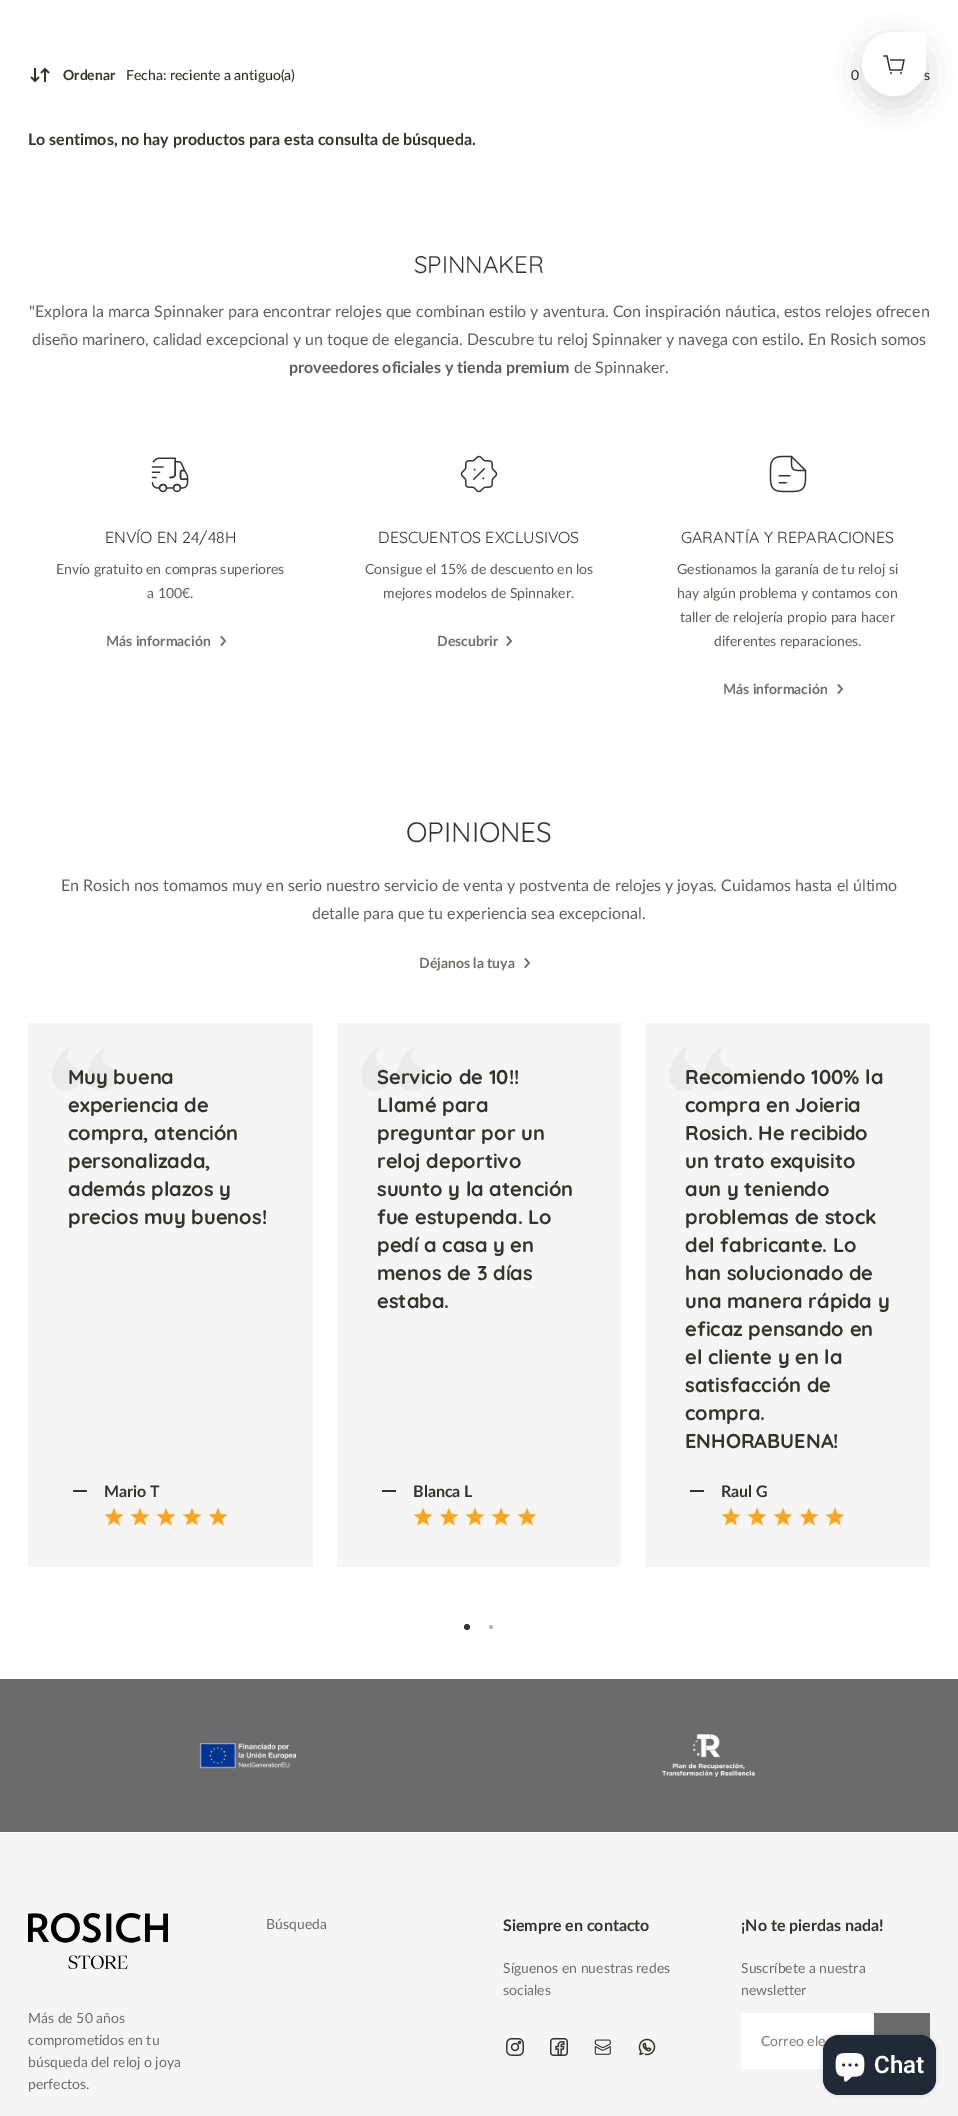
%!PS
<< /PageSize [958 2116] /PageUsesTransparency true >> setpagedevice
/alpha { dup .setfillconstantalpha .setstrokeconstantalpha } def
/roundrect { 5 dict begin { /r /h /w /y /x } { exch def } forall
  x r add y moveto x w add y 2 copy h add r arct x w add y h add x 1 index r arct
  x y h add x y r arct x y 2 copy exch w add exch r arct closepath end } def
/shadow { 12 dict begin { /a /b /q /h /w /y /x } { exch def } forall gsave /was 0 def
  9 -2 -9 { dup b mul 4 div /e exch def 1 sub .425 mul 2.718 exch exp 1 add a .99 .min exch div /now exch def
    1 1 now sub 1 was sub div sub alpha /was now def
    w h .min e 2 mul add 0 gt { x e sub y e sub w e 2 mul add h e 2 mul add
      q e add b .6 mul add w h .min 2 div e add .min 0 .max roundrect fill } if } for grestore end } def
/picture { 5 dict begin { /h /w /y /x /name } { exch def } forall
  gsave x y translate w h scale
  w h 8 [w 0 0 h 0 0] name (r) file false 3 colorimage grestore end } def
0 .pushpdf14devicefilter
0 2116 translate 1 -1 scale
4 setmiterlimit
1 setgray
0 0 958 2116 rectfill
0 setgray
862 41 64 64 32 16 0.15 shadow
/Lato-Medium [14 0 0 -14 0 0] selectfont
0.204 0.204 0.184 setrgbcolor
924 80 moveto (s) show
1 setgray
newpath 894 32 moveto 926 32 lineto 926 64 lineto 926 81.5 911.5 96 894 96 curveto 876.5 96 862 81.5 862 64 curveto 862 46.5 876.5 32 894 32 curveto closepath fill
(img1.rgb) 883 55 22 19 picture
(img2.rgb) 30 67 20 16 picture
/Lato-Bold [14 0 0 -14 0 0] selectfont
0.204 0.204 0.184 setrgbcolor
63 80 moveto (Ordenar) show
/Lato-Medium [14 0 0 -14 0 0] selectfont
126 80 moveto (Fecha: reciente a antiguo\(a\)) show
851 80 moveto (0) show
/Lato-Bold [16 0 0 -16 0 0] selectfont
28 145 moveto (Lo sentimos, no hay productos para esta consulta de búsqueda.) show
/Quicksand-Regular [24 0 0 -24 0 0] selectfont
414 273 moveto (SPINNAKER) show
/Lato-Regular [16 0 0 -16 0 0] selectfont
0.365 0.365 0.349 setrgbcolor
29 317 moveto ("Explora la marca Spinnaker para encontrar relojes que combinan estilo y aventura. Con inspiración náutica, estos relojes ofrecen) show
32 345 moveto (diseño marinero, calidad excepcional y un toque de elegancia. Descubre tu reloj Spinnaker y navega con estilo) show
/Lato-Bold [16 0 0 -16 0 0] selectfont
800 345 moveto (.) show
/Lato-Regular [16 0 0 -16 0 0] selectfont
808 345 moveto (En Rosich somos) show
/Lato-Bold [16 0 0 -16 0 0] selectfont
289 373 moveto (proveedores oficiales y tienda premium) show
/Lato-Regular [16 0 0 -16 0 0] selectfont
574 373 moveto (de Spinnaker.) show
(img3.rgb) 151 457 38 36 picture
/Quicksand-Regular [16 0 0 -16 0 0] selectfont
0.204 0.204 0.184 setrgbcolor
105 543 moveto (ENVÍO EN 24/48H) show
/Lato-Regular [14 0 0 -14 0 0] selectfont
0.365 0.365 0.349 setrgbcolor
56 574 moveto (Envío gratuito en compras superiores) show
147 598 moveto (a 100€.) show
/Lato-Bold [14 0 0 -14 0 0] selectfont
0.431 0.431 0.416 setrgbcolor
106 646 moveto (Más información) show
0.42 setgray
1.5 setlinewidth
newpath 221 636.5 moveto 225 641 lineto 221 645.5 lineto stroke
(img4.rgb) 460 455 38 38 picture
/Quicksand-Regular [16 0 0 -16 0 0] selectfont
0.204 0.204 0.184 setrgbcolor
378 543 moveto (DESCUENTOS EXCLUSIVOS) show
/Lato-Regular [14 0 0 -14 0 0] selectfont
0.365 0.365 0.349 setrgbcolor
365 574 moveto (Consigue el 15% de descuento en los) show
383 598 moveto (mejores modelos de Spinnaker.) show
/Lato-Bold [14 0 0 -14 0 0] selectfont
0.431 0.431 0.416 setrgbcolor
437 646 moveto (Descubrir) show
0.42 setgray
newpath 507 636.5 moveto 511 641 lineto 507 645.5 lineto stroke
(img5.rgb) 769 455 38 38 picture
/Quicksand-Regular [16 0 0 -16 0 0] selectfont
0.204 0.204 0.184 setrgbcolor
681 543 moveto (GARANTÍA Y REPARACIONES) show
/Lato-Regular [14 0 0 -14 0 0] selectfont
0.365 0.365 0.349 setrgbcolor
677 574 moveto (Gestionamos la garanía de tu reloj si) show
677 598 moveto (hay algún problema y contamos con) show
680 622 moveto (taller de relojería propio para hacer) show
714 646 moveto (diferentes reparaciones.) show
/Lato-Bold [14 0 0 -14 0 0] selectfont
0.431 0.431 0.416 setrgbcolor
723 694 moveto (Más información) show
0.42 setgray
newpath 838 684.5 moveto 842 689 lineto 838 693.5 lineto stroke
/Quicksand-Regular [28 0 0 -28 0 0] selectfont
0.204 0.204 0.184 setrgbcolor
406 842 moveto (OPINIONES) show
/Lato-Regular [16 0 0 -16 0 0] selectfont
0.365 0.365 0.349 setrgbcolor
61 891 moveto (En Rosich nos tomamos muy en serio nuestro servicio de venta y postventa de relojes y joyas. Cuidamos hasta el último) show
312 919 moveto (detalle para que tu experiencia sea excepcional.) show
/Lato-Bold [14 0 0 -14 0 0] selectfont
0.431 0.431 0.416 setrgbcolor
419 968 moveto (Déjanos la tuya) show
0.42 setgray
newpath 525 958.5 moveto 529 963 lineto 525 967.5 lineto stroke
0.961 setgray
28 1023 285 544 rectfill
(img6.rgb) 52 1047 64 44 picture
/Quicksand-Bold [20 0 0 -20 0 0] selectfont
0.204 0.204 0.184 setrgbcolor
68 1084 moveto (Muy buena) show
68 1112 moveto (experiencia de) show
68 1140 moveto (compra, atención) show
68 1168 moveto (personalizada,) show
68 1196 moveto (además plazos y) show
68 1224 moveto (precios muy buenos!) show
73 1490 14 2 rectfill
/Lato-Bold [16 0 0 -16 0 0] selectfont
104 1497 moveto (Mario T) show
(img7.rgb) 104 1507 20 19 picture
(img7.rgb) 130 1507 20 19 picture
(img7.rgb) 156 1507 20 19 picture
(img7.rgb) 182 1507 20 19 picture
(img7.rgb) 208 1507 20 19 picture
0.961 setgray
337 1023 284 544 rectfill
(img6.rgb) 361 1047 64 44 picture
/Quicksand-Bold [20 0 0 -20 0 0] selectfont
0.204 0.204 0.184 setrgbcolor
377 1084 moveto (Servicio de 10!!) show
377 1112 moveto (Llamé para) show
377 1140 moveto (preguntar por un) show
377 1168 moveto (reloj deportivo) show
377 1196 moveto (suunto y la atención) show
377 1224 moveto (fue estupenda. Lo) show
377 1252 moveto (pedí a casa y en) show
377 1280 moveto (menos de 3 días) show
377 1308 moveto (estaba.) show
382 1490 14 2 rectfill
/Lato-Bold [16 0 0 -16 0 0] selectfont
413 1497 moveto (Blanca L) show
(img7.rgb) 413 1507 20 19 picture
(img7.rgb) 439 1507 20 19 picture
(img7.rgb) 465 1507 20 19 picture
(img7.rgb) 491 1507 20 19 picture
(img7.rgb) 517 1507 20 19 picture
0.961 setgray
645 1023 285 544 rectfill
(img6.rgb) 669 1047 64 44 picture
/Quicksand-Bold [20 0 0 -20 0 0] selectfont
0.204 0.204 0.184 setrgbcolor
685 1084 moveto (Recomiendo 100% la) show
685 1112 moveto (compra en Joieria) show
685 1140 moveto (Rosich. He recibido) show
685 1168 moveto (un trato exquisito) show
685 1196 moveto (aun y teniendo) show
685 1224 moveto (problemas de stock) show
685 1252 moveto (del fabricante. Lo) show
685 1280 moveto (han solucionado de) show
685 1308 moveto (una manera rápida y) show
685 1336 moveto (eficaz pensando en) show
685 1364 moveto (el cliente y en la) show
685 1392 moveto (satisfacción de) show
685 1420 moveto (compra.) show
685 1448 moveto (ENHORABUENA!) show
690 1490 14 2 rectfill
/Lato-Bold [16 0 0 -16 0 0] selectfont
721 1497 moveto (Raul G) show
(img7.rgb) 721 1507 20 19 picture
(img7.rgb) 747 1507 20 19 picture
(img7.rgb) 773 1507 20 19 picture
(img7.rgb) 799 1507 20 19 picture
(img7.rgb) 825 1507 20 19 picture
newpath 467 1627 3 0 360 arc closepath fill
0.722 0.722 0.714 setrgbcolor
newpath 491 1627 2 0 360 arc closepath fill
0.42 setgray
0 1679 958 153 rectfill
(img8.rgb) 199 1742 97 27 picture
(img9.rgb) 662 1734 93 43 picture
0.961 setgray
0 1833 958 283 rectfill
(img10.rgb) 28 1913 140 56 picture
/Lato-Regular [14 0 0 -14 0 0] selectfont
0.431 0.431 0.416 setrgbcolor
28 2023 moveto (Más de 50 años) show
28 2045 moveto (comprometidos en tu) show
28 2067 moveto (búsqueda del reloj o joya) show
28 2089 moveto (perfectos.) show
266 1929 moveto (Búsqueda) show
/Lato-Bold [16 0 0 -16 0 0] selectfont
0.204 0.204 0.184 setrgbcolor
503 1931 moveto (Siempre en contacto) show
/Lato-Regular [14 0 0 -14 0 0] selectfont
0.431 0.431 0.416 setrgbcolor
503 1973 moveto (Síguenos en nuestras redes) show
503 1995 moveto (sociales) show
(img11.rgb) 506 2038 18 18 picture
(img12.rgb) 550 2038 18 18 picture
(img13.rgb) 594 2039 17 16 picture
(img14.rgb) 638 2038 18 18 picture
/Lato-Bold [16 0 0 -16 0 0] selectfont
0.204 0.204 0.184 setrgbcolor
741 1931 moveto (¡No te pierdas nada!) show
/Lato-Regular [14 0 0 -14 0 0] selectfont
0.431 0.431 0.416 setrgbcolor
741 1973 moveto (Suscríbete a nuestra) show
741 1995 moveto (newsletter) show
0.42 setgray
874 2013 56 26 rectfill
1 setgray
741 2013 133 56 rectfill
/Lato-Medium [14 0 0 -14 0 0] selectfont
0.522 0.522 0.51 setrgbcolor
761 2046 moveto (Correo ele) show
0 setgray
823 2035 113 60 16 2.5 0.15 shadow
0.125 0.165 0.212 setrgbcolor
823 2035 113 60 16 roundrect fill
(img15.rgb) 835 2053 30 29 picture
/Roboto-SemiBold [24 0 0 -24 0 0] selectfont
1 setgray
874 2073 moveto (Chat) show
.poppdf14devicefilter showpage
